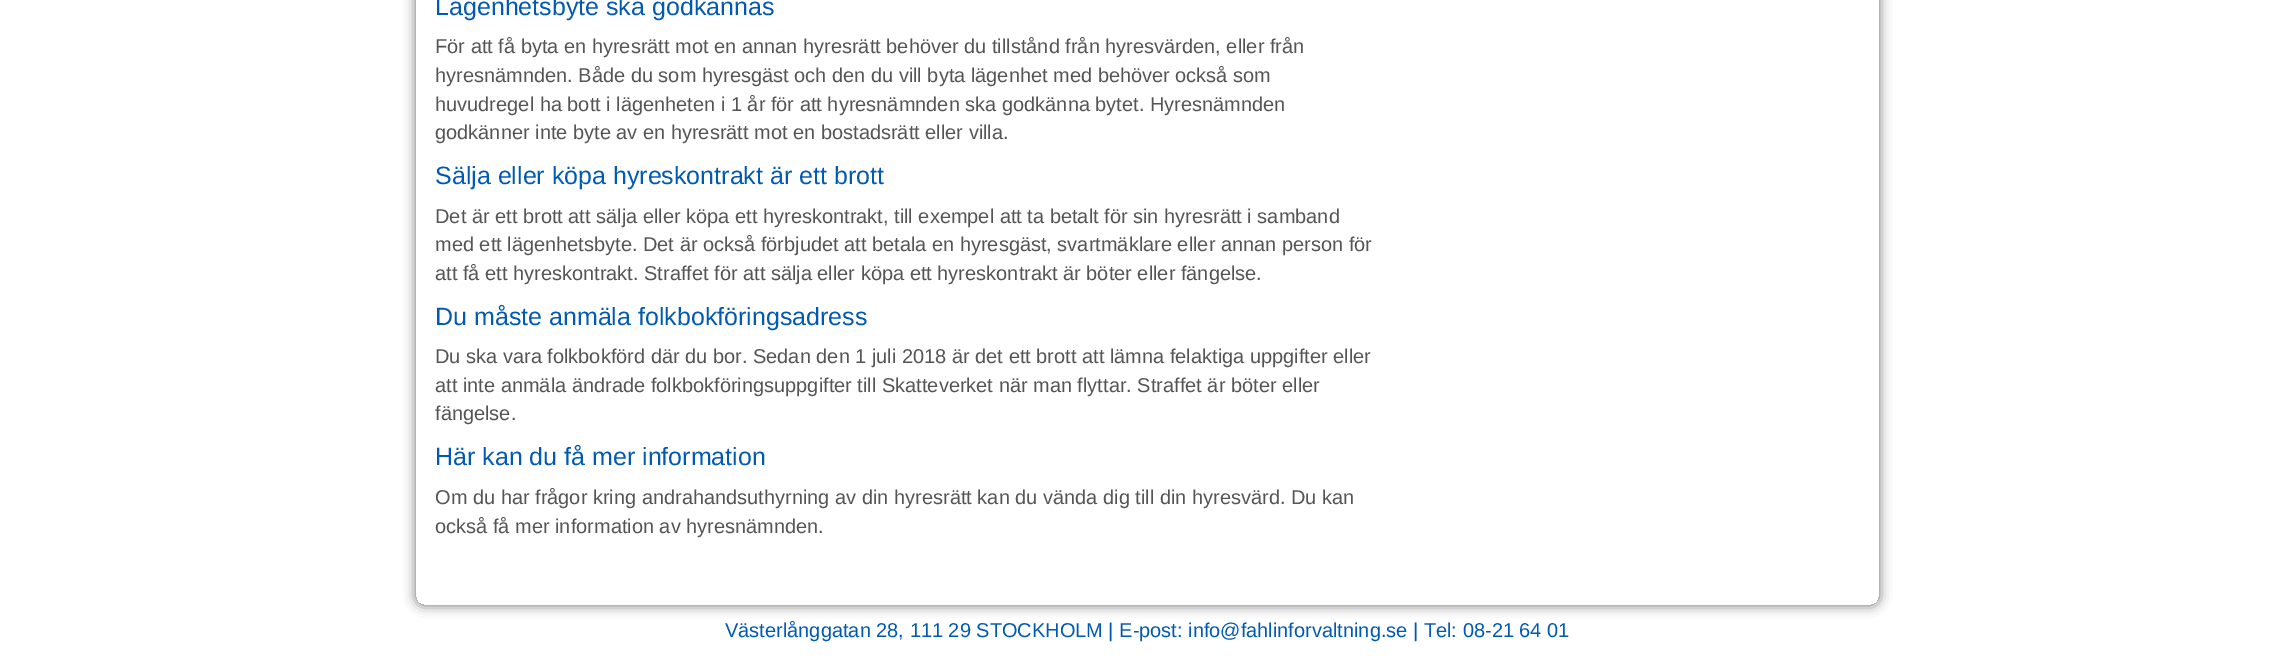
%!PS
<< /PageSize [2295 660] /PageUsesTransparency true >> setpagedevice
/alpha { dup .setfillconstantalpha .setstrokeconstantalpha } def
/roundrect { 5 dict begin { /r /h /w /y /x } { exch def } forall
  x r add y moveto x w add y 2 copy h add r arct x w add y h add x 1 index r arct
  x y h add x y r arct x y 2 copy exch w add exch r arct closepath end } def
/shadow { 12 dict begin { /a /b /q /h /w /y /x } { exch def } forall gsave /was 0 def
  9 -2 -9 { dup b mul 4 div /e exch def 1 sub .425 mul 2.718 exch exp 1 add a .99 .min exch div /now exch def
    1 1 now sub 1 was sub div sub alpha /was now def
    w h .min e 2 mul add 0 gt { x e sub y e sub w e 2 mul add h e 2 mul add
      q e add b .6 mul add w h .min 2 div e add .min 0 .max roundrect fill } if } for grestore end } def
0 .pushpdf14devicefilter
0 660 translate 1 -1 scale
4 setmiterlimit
1 setgray
0 0 2295 660 rectfill
gsave
newpath 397 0 moveto 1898 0 lineto 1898 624 lineto 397 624 lineto closepath 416 -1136 moveto 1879 -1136 lineto 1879 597 lineto 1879 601.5 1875.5 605 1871 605 curveto 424 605 lineto 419.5 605 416 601.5 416 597 curveto closepath eoclip newpath
0.4 setgray
416 -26 1463 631 8 6 1 shadow
grestore
/LiberationSans-Regular [25 0 0 -25 0 0] selectfont
0 0.353 0.698 setrgbcolor
435 15 moveto (Lägenhetsbyte ska godkännas) show
/LiberationSans-Regular [20 0 0 -20 0 0] selectfont
0.333 setgray
435 53 moveto (För att få byta en hyresrätt mot en annan hyresrätt behöver du tillstånd från hyresvärden, eller från) show
435 82 moveto (hyresnämnden. Både du som hyresgäst och den du vill byta lägenhet med behöver också som) show
435 111 moveto (huvudregel ha bott i lägenheten i 1 år för att hyresnämnden ska godkänna bytet. Hyresnämnden) show
435 139 moveto (godkänner inte byte av en hyresrätt mot en bostadsrätt eller villa.) show
/LiberationSans-Regular [25 0 0 -25 0 0] selectfont
0 0.353 0.698 setrgbcolor
435 184 moveto (Sälja eller köpa hyreskontrakt är ett brott) show
/LiberationSans-Regular [20 0 0 -20 0 0] selectfont
0.333 setgray
435 223 moveto (Det är ett brott att sälja eller köpa ett hyreskontrakt, till exempel att ta betalt för sin hyresrätt i samband) show
435 251 moveto (med ett lägenhetsbyte. Det är också förbjudet att betala en hyresgäst, svartmäklare eller annan person för) show
435 280 moveto (att få ett hyreskontrakt. Straffet för att sälja eller köpa ett hyreskontrakt är böter eller fängelse.) show
/LiberationSans-Regular [25 0 0 -25 0 0] selectfont
0 0.353 0.698 setrgbcolor
435 325 moveto (Du måste anmäla folkbokföringsadress) show
/LiberationSans-Regular [20 0 0 -20 0 0] selectfont
0.333 setgray
435 363 moveto (Du ska vara folkbokförd där du bor. Sedan den 1 juli 2018 är det ett brott att lämna felaktiga uppgifter eller) show
435 392 moveto (att inte anmäla ändrade folkbokföringsuppgifter till Skatteverket när man flyttar. Straffet är böter eller) show
435 420 moveto (fängelse.) show
/LiberationSans-Regular [25 0 0 -25 0 0] selectfont
0 0.353 0.698 setrgbcolor
435 465 moveto (Här kan du få mer information) show
/LiberationSans-Regular [20 0 0 -20 0 0] selectfont
0.333 setgray
435 504 moveto (Om du har frågor kring andrahandsuthyrning av din hyresrätt kan du vända dig till din hyresvärd. Du kan) show
435 533 moveto (också få mer information av hyresnämnden.) show
0 0.353 0.698 setrgbcolor
725 637 moveto (Västerlånggatan 28, 111 29 STOCKHOLM | E-post: info@fahlinforvaltning.se | Tel: 08-21 64 01) show
.poppdf14devicefilter showpage
